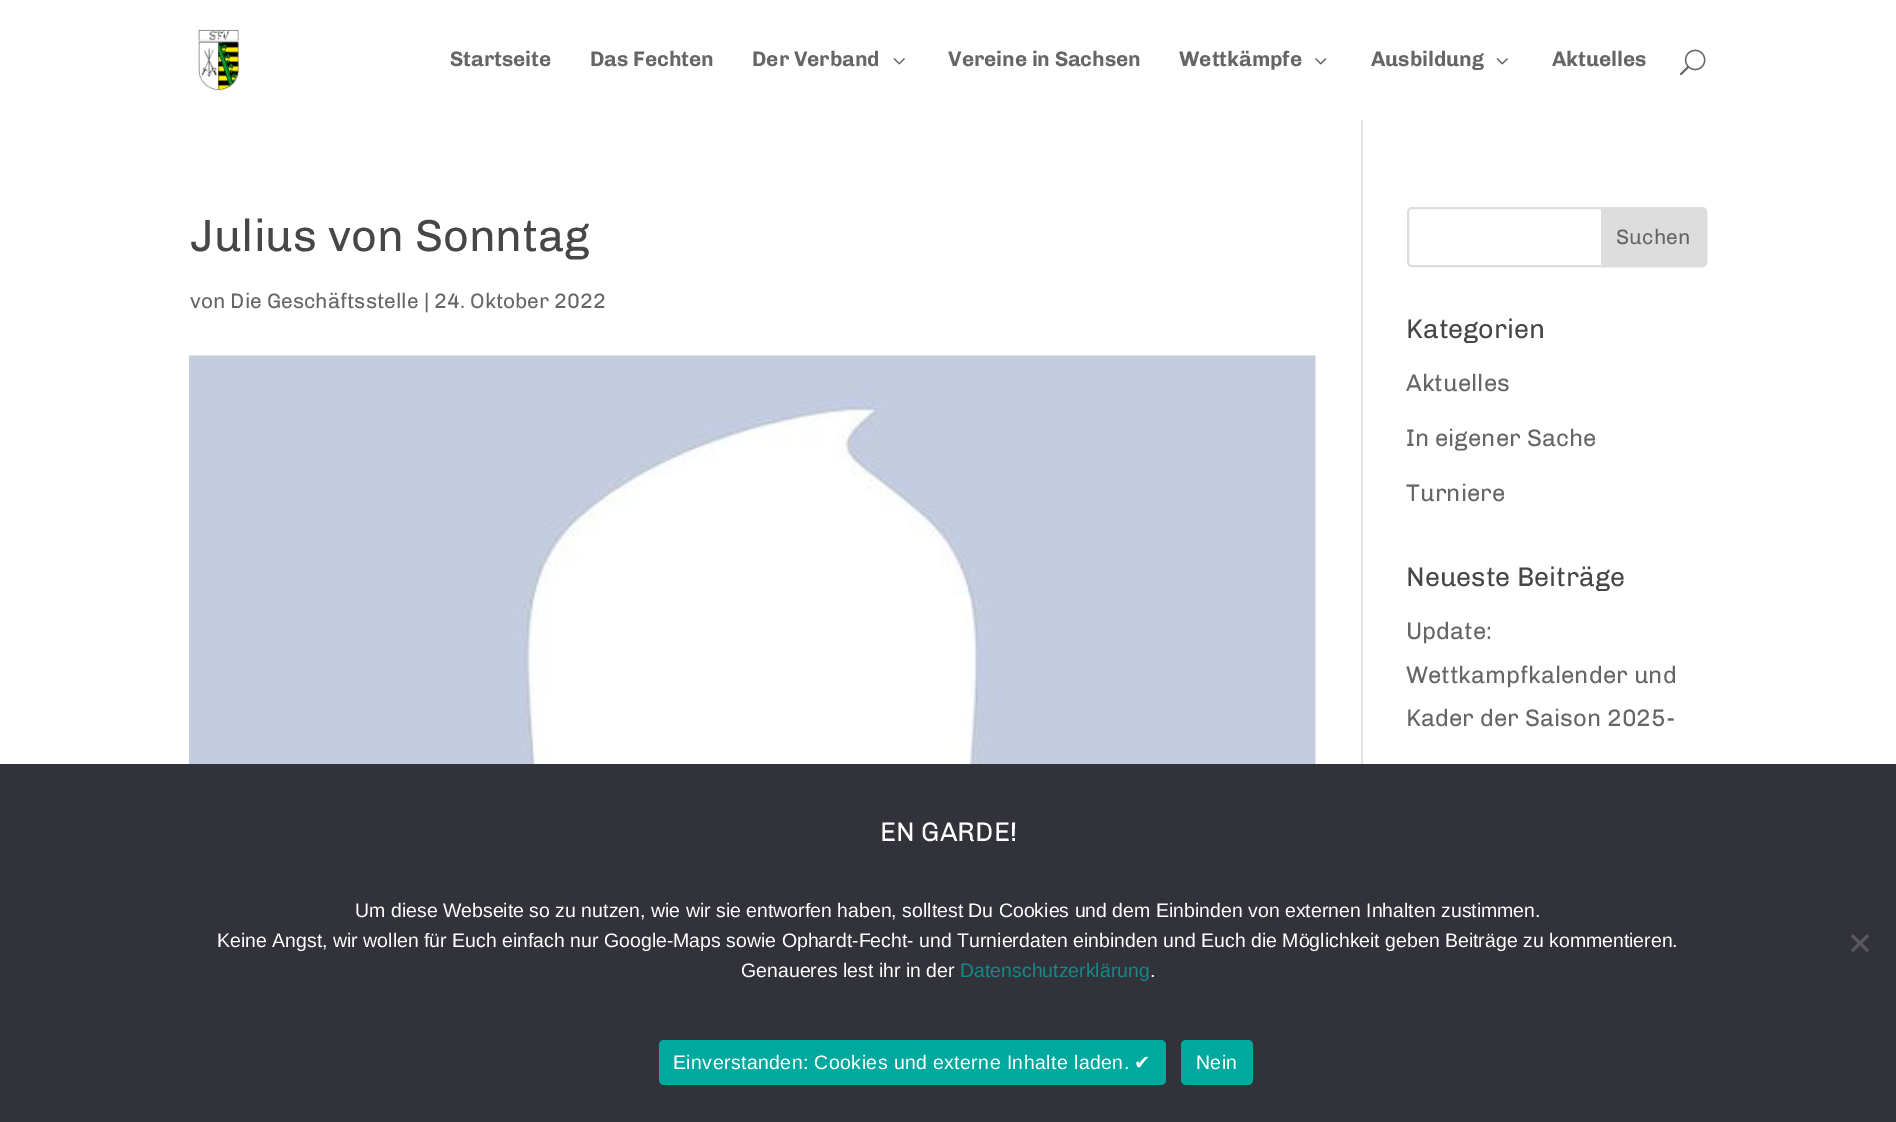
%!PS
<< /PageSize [1896 1122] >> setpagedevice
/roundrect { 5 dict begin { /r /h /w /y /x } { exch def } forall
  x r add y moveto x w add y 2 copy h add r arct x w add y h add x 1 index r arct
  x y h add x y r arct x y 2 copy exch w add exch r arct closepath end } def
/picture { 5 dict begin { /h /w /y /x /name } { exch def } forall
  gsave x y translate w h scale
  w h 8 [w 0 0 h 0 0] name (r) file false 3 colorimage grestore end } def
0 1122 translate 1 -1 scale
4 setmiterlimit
1 setgray
0 0 1896 1122 rectfill
(img1.rgb) 198 29 41 62 picture
/Chivo-Bold [21 0 0 -21 0 0] selectfont
0.4 setgray
450 66 moveto (Startseite) show
590 66 moveto (Das Fechten) show
752 66 moveto (Der Verband) show
(img2.rgb) 893 58 12 7 picture
948 66 moveto (Vereine in Sachsen) show
1179 66 moveto (Wettkämpfe) show
(img3.rgb) 1315 58 12 7 picture
1371 66 moveto (Ausbildung) show
(img2.rgb) 1496 58 12 7 picture
1552 66 moveto (Aktuelles) show
(img4.rgb) 1679 49 27 27 picture
0.886 setgray
1361 120 2 644 rectfill
/Chivo-Regular [45 0 0 -45 0 0] selectfont
0.278 setgray
190 251 moveto (Julius von Sonntag) show
/Chivo-Regular [21 0 0 -21 0 0] selectfont
0.4 setgray
190 308 moveto (von Die Geschäftsstelle | 24. Oktober 2022) show
(img5.rgb) 189 355 1127 409 picture
0.867 setgray
2 setlinewidth
1408 208 298 58 4 roundrect stroke
newpath 1602 208 moveto 1702 208 lineto 1704 208 1706 210 1706 212 curveto 1706 262 lineto 1706 264 1704 266 1702 266 curveto 1602 266 lineto closepath gsave fill grestore
stroke
0.4 setgray
1616 244 moveto (Suchen) show
/Chivo-Regular [27 0 0 -27 0 0] selectfont
0.278 setgray
1406 338 moveto (Kategorien) show
/Chivo-Regular [24 0 0 -24 0 0] selectfont
0.4 setgray
1406 391 moveto (Aktuelles) show
1406 446 moveto (In eigener Sache) show
1406 501 moveto (Turniere) show
/Chivo-Regular [27 0 0 -27 0 0] selectfont
0.278 setgray
1406 586 moveto (Neueste Beiträge) show
/Chivo-Regular [24 0 0 -24 0 0] selectfont
0.4 setgray
1406 639 moveto (Update:) show
1406 683 moveto (Wettkampfkalender und) show
1406 726 moveto (Kader der Saison 2025-) show
0.196 0.196 0.227 setrgbcolor
0 764 1896 358 rectfill
/Chivo-Regular [27 0 0 -27 0 0] selectfont
1 setgray
880 841 moveto (EN GARDE!) show
/LiberationSans-Regular [19.5 0 0 -19.5 0 0] selectfont
355 917 moveto (Um diese Webseite so zu nutzen, wie wir sie entworfen haben, solltest Du Cookies und dem Einbinden von externen Inhalten zustimmen.) show
217 947 moveto (Keine Angst, wir wollen für Euch einfach nur Google-Maps sowie Ophardt-Fecht- und Turnierdaten einbinden und Euch die Möglichkeit geben Beiträge zu kommentieren.) show
741 977 moveto (Genaueres lest ihr in der) show
0.082 0.529 0.522 setrgbcolor
960 977 moveto (Datenschutzerklärung) show
1 setgray
1150 977 moveto (.) show
0.349 0.349 0.365 setrgbcolor
newpath 1867 934 moveto 1869 936.5 lineto 1853 952 lineto 1851 950 lineto closepath fill
newpath 1851 936.5 moveto 1853 934 lineto 1869 950 lineto 1867 952 lineto closepath fill
0 0.663 0.616 setrgbcolor
659 1040 507 45 5 roundrect fill
1 setgray
673 1069 moveto 0.4 0 (Einverstanden: Cookies und externe Inhalte laden.) ashow
/DejaVuSans-Regular [19.5 0 0 -19.5 0 0] selectfont
1134 1069 moveto 0.4 0 (✔) ashow
0 0.663 0.616 setrgbcolor
1181 1040 72 45 5 roundrect fill
/LiberationSans-Regular [19.5 0 0 -19.5 0 0] selectfont
1 setgray
1196 1069 moveto 0.4 0 (Nein) ashow
showpage
